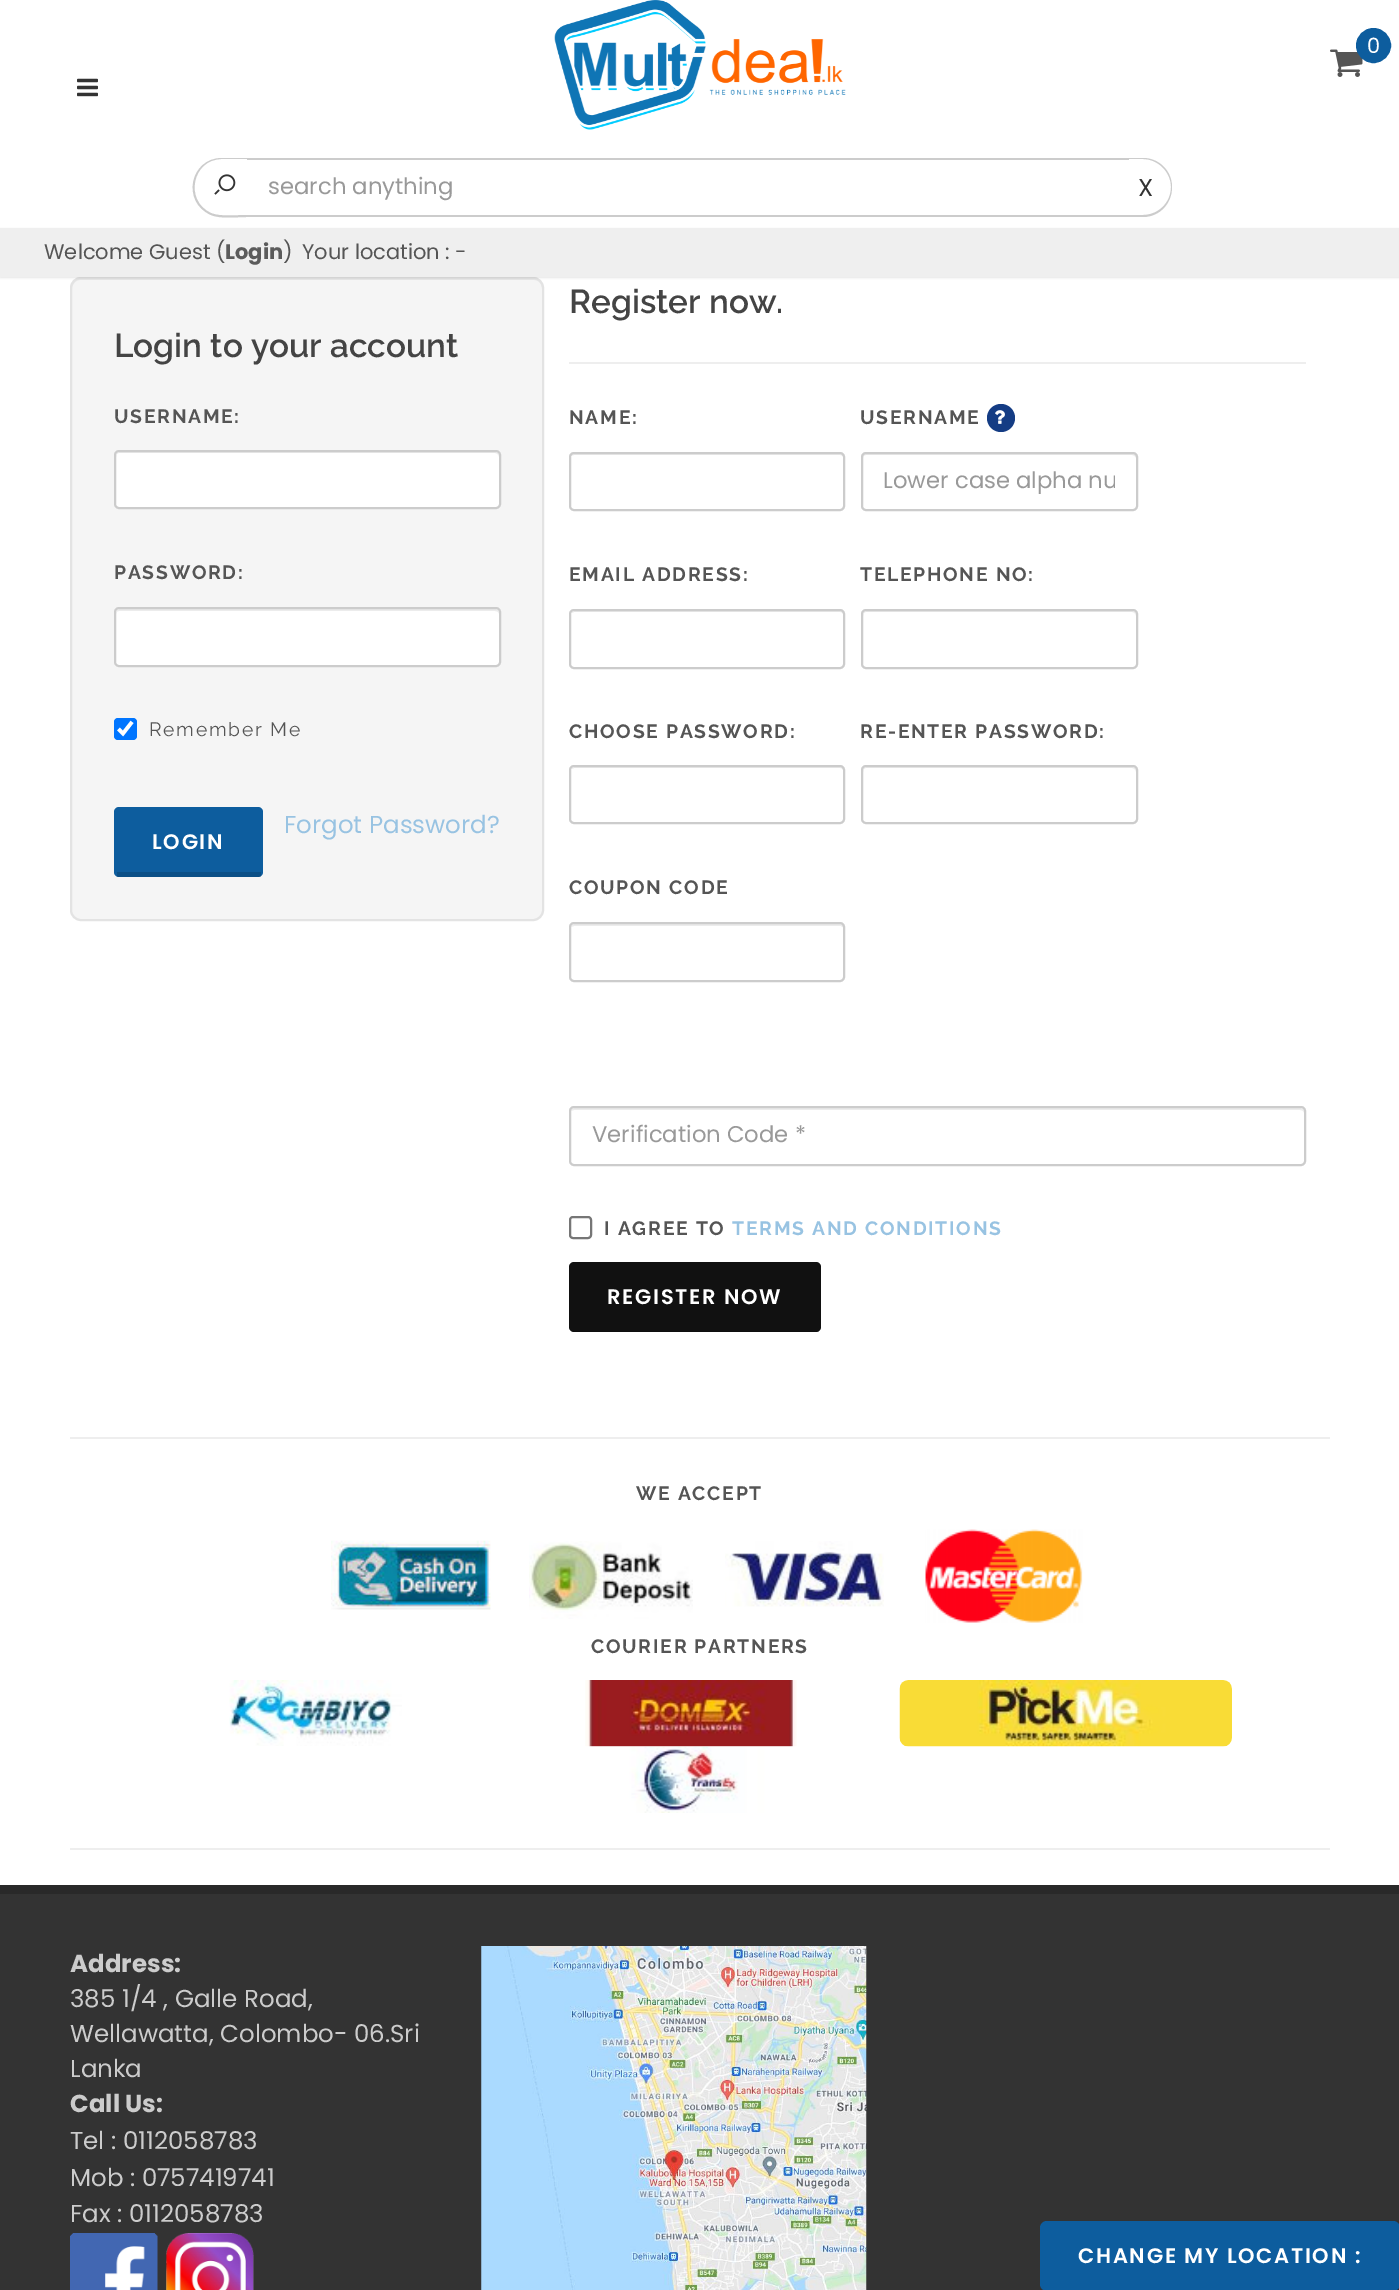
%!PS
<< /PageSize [1399 2290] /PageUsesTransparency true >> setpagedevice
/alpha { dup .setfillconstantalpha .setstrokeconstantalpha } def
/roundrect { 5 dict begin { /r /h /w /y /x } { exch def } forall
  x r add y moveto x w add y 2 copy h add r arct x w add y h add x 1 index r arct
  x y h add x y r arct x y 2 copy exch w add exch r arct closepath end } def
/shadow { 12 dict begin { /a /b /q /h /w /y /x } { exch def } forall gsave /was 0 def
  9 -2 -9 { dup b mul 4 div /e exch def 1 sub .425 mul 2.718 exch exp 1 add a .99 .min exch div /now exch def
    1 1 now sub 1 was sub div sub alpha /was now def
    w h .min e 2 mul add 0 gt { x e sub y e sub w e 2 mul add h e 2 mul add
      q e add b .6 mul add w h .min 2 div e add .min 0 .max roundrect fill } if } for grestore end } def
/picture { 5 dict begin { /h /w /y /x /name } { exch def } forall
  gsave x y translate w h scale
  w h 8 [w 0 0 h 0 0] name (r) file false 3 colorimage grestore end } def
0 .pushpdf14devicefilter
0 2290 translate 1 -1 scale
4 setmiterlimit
1 setgray
0 0 1399 2290 rectfill
(img1.rgb) 554 0 292 130 picture
(img2.rgb) 77 78 21 19 picture
(img3.rgb) 1330 49 33 28 picture
0.051 0.365 0.62 setrgbcolor
newpath 1373.5 45.5 16.5 0 360 arc closepath gsave fill grestore
2 setlinewidth
stroke
/Poppins-Regular [21 0 0 -21 0 0] selectfont
1 setgray
1367 53 moveto (0) show
0.8 setgray
newpath 222 158 moveto 247 158 lineto 247 217 lineto 236 217 220 219 211 215 curveto 181 202 190 158 222 158 curveto closepath 222 159 moveto 247 159 lineto 247 215 lineto 237 215 220 217 211 213 curveto 184 201 192 159 222 159 curveto closepath eofill
(img4.rgb) 214 174 22 21 picture
247 158 882 2 rectfill
247 215 882 2 rectfill
/Poppins-Regular [22.75 0 0 -22.75 0 0] selectfont
0.6 setgray
268 194 moveto (search anything) show
0.8 setgray
newpath 1129 158 moveto 1143 158 lineto 1159 158 1172 171 1172 187 curveto 1172 204 1159 217 1143 217 curveto 1129 217 lineto closepath 1129 159 moveto 1143 159 lineto 1158 159 1171 172 1171 187 curveto 1171 203 1158 215 1143 215 curveto 1129 215 lineto closepath eofill
/Poppins-Regular [24.5 0 0 -24.5 0 0] selectfont
0.2 setgray
1138 196 moveto (X) show
0.961 setgray
70 277 474 644 11 roundrect fill
0.914 setgray
newpath 80 280 moveto 534 280 lineto 539 280 542 284 542 289 curveto 542 915 lineto 543 913 543 912 543 910 curveto 543 287 lineto 543 282 539 278 534 278 curveto 81 278 lineto 76 278 72 282 72 287 curveto 72 289 lineto 72 284 76 280 80 280 curveto closepath fill
0.89 setgray
71 278 472 642 10 roundrect stroke
0 setgray
0 229 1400 49 0 1 0.1 shadow
0.937 setgray
0 228 1399 49 rectfill
/Poppins-Regular [21 0 0 -21 0 0] selectfont
0.333 setgray
44 259 moveto (Welcome Guest \() show
/Poppins-Bold [21 0 0 -21 0 0] selectfont
0.357 setgray
225 259 moveto (Login) show
/Poppins-Regular [21 0 0 -21 0 0] selectfont
0.333 setgray
283 259 moveto (\)) show
302 259 moveto (Your location : -) show
/Raleway-SemiBold [33.25 0 0 -33.25 0 0] selectfont
0.267 setgray
114 357 moveto (Login to your account) show
/Raleway-Bold [19.25 0 0 -19.25 0 0] selectfont
0.333 setgray
114 423 moveto 1.75 0 (USERNAME:) ashow
1 setgray
114 450 387 59 5 roundrect fill
0.925 setgray
newpath 119 453 moveto 495 453 lineto 497 453 499 455 499 457 curveto 499 454 498 452 495 452 curveto 120 452 lineto 117 452 116 454 116 457 curveto 116 455 117 453 119 453 curveto closepath fill
0.8 setgray
115 451 385 57 4 roundrect stroke
0.333 setgray
114 579 moveto 1.75 0 (PASSWORD:) ashow
1 setgray
114 607 387 60 5 roundrect fill
0.925 setgray
newpath 119 611 moveto 495 611 lineto 497 611 499 612 499 614 curveto 499 611 498 609 495 609 curveto 120 609 lineto 117 609 116 611 116 614 curveto 116 612 117 611 119 611 curveto closepath fill
0.8 setgray
115 608 385 58 4 roundrect stroke
0 0.459 1 setrgbcolor
114 718 23 22 4 roundrect fill
1 setgray
3.6 setlinewidth
newpath 118.5 729 moveto 123 733.5 lineto 132 722 lineto stroke
/Raleway-Regular [19.25 0 0 -19.25 0 0] selectfont
0.333 setgray
149 736 moveto 1.75 0 (Remember Me) ashow
/Poppins-Regular [24.5 0 0 -24.5 0 0] selectfont
0.596 0.765 0.886 setrgbcolor
284 833 moveto (Forgot Password?) show
0.051 0.365 0.62 setrgbcolor
114 807 149 70 5 roundrect fill
0.15 alpha
0 setgray
117 872 144 5 rectfill
/Poppins-SemiBold [21 0 0 -21 0 0] selectfont
1 alpha
1 setgray
152 849 moveto 1.75 0 (LOGIN) ashow
/Raleway-SemiBold [33.25 0 0 -33.25 0 0] selectfont
0.267 setgray
569 313 moveto (Register now.) show
0.933 setgray
569 362 737 2 rectfill
/Raleway-Bold [19.25 0 0 -19.25 0 0] selectfont
0.333 setgray
569 424 moveto 1.75 0 (NAME:) ashow
0.925 setgray
newpath 574 455 moveto 840 455 lineto 842 455 844 457 844 458 curveto 844 457 lineto 844 455 842 453 840 453 curveto 575 453 lineto 573 453 571 454 571 456 curveto closepath fill
0.8 setgray
2 setlinewidth
570 453 274 57 4 roundrect stroke
0.333 setgray
860 424 moveto 1.75 0 (USERNAME) ashow
0.078 0.235 0.518 setrgbcolor
newpath 1001 418 14 0 360 arc closepath fill
(img5.rgb) 995 410 10 14 picture
0.925 setgray
newpath 866 455 moveto 1132 455 lineto 1134 455 1136 457 1136 458 curveto 1136 455 1135 453 1132 453 curveto 867 453 lineto 864 453 863 455 863 458 curveto 863 457 864 455 866 455 curveto closepath fill
0.8 setgray
862 453 275 57 4 roundrect stroke
gsave
884 464 231 35 rectclip
/Poppins-Regular [22.75 0 0 -22.75 0 0] selectfont
0.6 setgray
883 488 moveto (Lower case alpha nu) show
grestore
0.333 setgray
569 581 moveto 1.75 0 (EMAIL ADDRESS:) ashow
0.925 setgray
newpath 574 612 moveto 840 612 lineto 842 612 844 614 844 616 curveto 844 615 lineto 844 613 842 611 840 611 curveto 575 611 lineto 574 611 572 612 572 613 curveto closepath fill
0.8 setgray
570 610 274 58 4 roundrect stroke
0.333 setgray
860 581 moveto 1.75 0 (TELEPHONE NO:) ashow
0.925 setgray
newpath 866 612 moveto 1132 612 lineto 1134 612 1136 614 1136 616 curveto 1136 613 1135 611 1132 611 curveto 867 611 lineto 864 611 863 613 863 616 curveto 863 614 864 612 866 612 curveto closepath fill
0.8 setgray
862 610 275 58 4 roundrect stroke
0.333 setgray
569 738 moveto 1.75 0 (CHOOSE PASSWORD:) ashow
0.925 setgray
newpath 574 768 moveto 840 768 lineto 842 768 844 770 844 772 curveto 844 771 lineto 844 769 842 767 840 767 curveto 575 767 lineto 574 767 572 768 572 769 curveto closepath fill
0.8 setgray
570 766 274 57 4 roundrect stroke
0.333 setgray
860 738 moveto 1.75 0 (RE-ENTER PASSWORD:) ashow
0.925 setgray
newpath 866 768 moveto 1132 768 lineto 1134 768 1136 770 1136 772 curveto 1136 769 1135 767 1132 767 curveto 867 767 lineto 864 767 863 769 863 772 curveto 863 770 864 768 866 768 curveto closepath fill
0.8 setgray
862 766 275 57 4 roundrect stroke
0.333 setgray
569 894 moveto 1.75 0 (COUPON CODE) ashow
0.925 setgray
newpath 574 926 moveto 841 926 lineto 844 928 lineto 844 929 lineto 844 928 lineto 844 926 842 924 840 924 curveto 575 924 lineto 573 924 572 925 571 927 curveto closepath fill
0.8 setgray
570 923 274 58 4 roundrect stroke
0.925 setgray
newpath 574 1110 moveto 1300 1110 lineto 1302 1110 1304 1111 1304 1113 curveto 1304 1112 lineto 1304 1110 1302 1108 1300 1108 curveto 575 1108 lineto 573 1108 572 1109 571 1111 curveto closepath fill
0.8 setgray
570 1107 735 58 4 roundrect stroke
/Poppins-Regular [22.75 0 0 -22.75 0 0] selectfont
0.6 setgray
592 1142 moveto (Verification Code *) show
0.463 setgray
570 1217 21 21 3 roundrect stroke
/Raleway-Bold [19.25 0 0 -19.25 0 0] selectfont
0.333 setgray
604 1235 moveto 1.75 0 (I AGREE TO) ashow
0.596 0.765 0.886 setrgbcolor
732 1235 moveto 1.75 0 (TERMS AND CONDITIONS) ashow
0.067 setgray
569 1262 252 70 5 roundrect fill
0.15 alpha
0 setgray
572 1331 247 1 rectfill
/Poppins-SemiBold [21 0 0 -21 0 0] selectfont
1 alpha
1 setgray
607 1304 moveto 1.75 0 (REGISTER NOW) ashow
0.933 setgray
70 1437 1260 2 rectfill
/Raleway-Bold [19.25 0 0 -19.25 0 0] selectfont
0.333 setgray
636 1500 moveto 1.75 0 (WE ACCEPT) ashow
(img6.rgb) 331 1540 160 70 picture
(img7.rgb) 529 1541 164 78 picture
(img8.rgb) 725 1541 159 66 picture
(img9.rgb) 925 1529 158 94 picture
591 1653 moveto 1.75 0 (COURIER PARTNERS) ashow
(img10.rgb) 229 1680 173 66 picture
(img11.rgb) 585 1680 212 67 picture
(img12.rgb) 899 1680 333 67 picture
(img13.rgb) 590 1746 203 67 picture
0.933 setgray
70 1848 1260 2 rectfill
0.2 setgray
0 1894 1399 396 rectfill
0.161 setgray
0 1885 1399 9 rectfill
/Poppins-Bold [24.5 0 0 -24.5 0 0] selectfont
0.8 setgray
70 1972 moveto (Address:) show
/Poppins-Regular [24.5 0 0 -24.5 0 0] selectfont
70 2007 moveto (385 1/4 , Galle Road,) show
70 2042 moveto (Wellawatta, Colombo- 06.Sri) show
70 2077 moveto (Lanka) show
/Poppins-Bold [24.5 0 0 -24.5 0 0] selectfont
70 2112 moveto (Call Us:) show
/Poppins-Regular [24.5 0 0 -24.5 0 0] selectfont
70 2149 moveto (Tel : 0112058783) show
70 2186 moveto (Mob : 0757419741) show
70 2222 moveto (Fax : 0112058783) show
(img14.rgb) 70 2233 88 57 picture
(img15.rgb) 166 2233 88 57 picture
(img16.rgb) 481 1946 386 344 picture
0.051 0.365 0.62 setrgbcolor
1040 2221 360 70 7 roundrect fill
/Poppins-SemiBold [21 0 0 -21 0 0] selectfont
1 setgray
1078 2263 moveto 1.75 0 (CHANGE MY LOCATION :) ashow
.poppdf14devicefilter showpage
